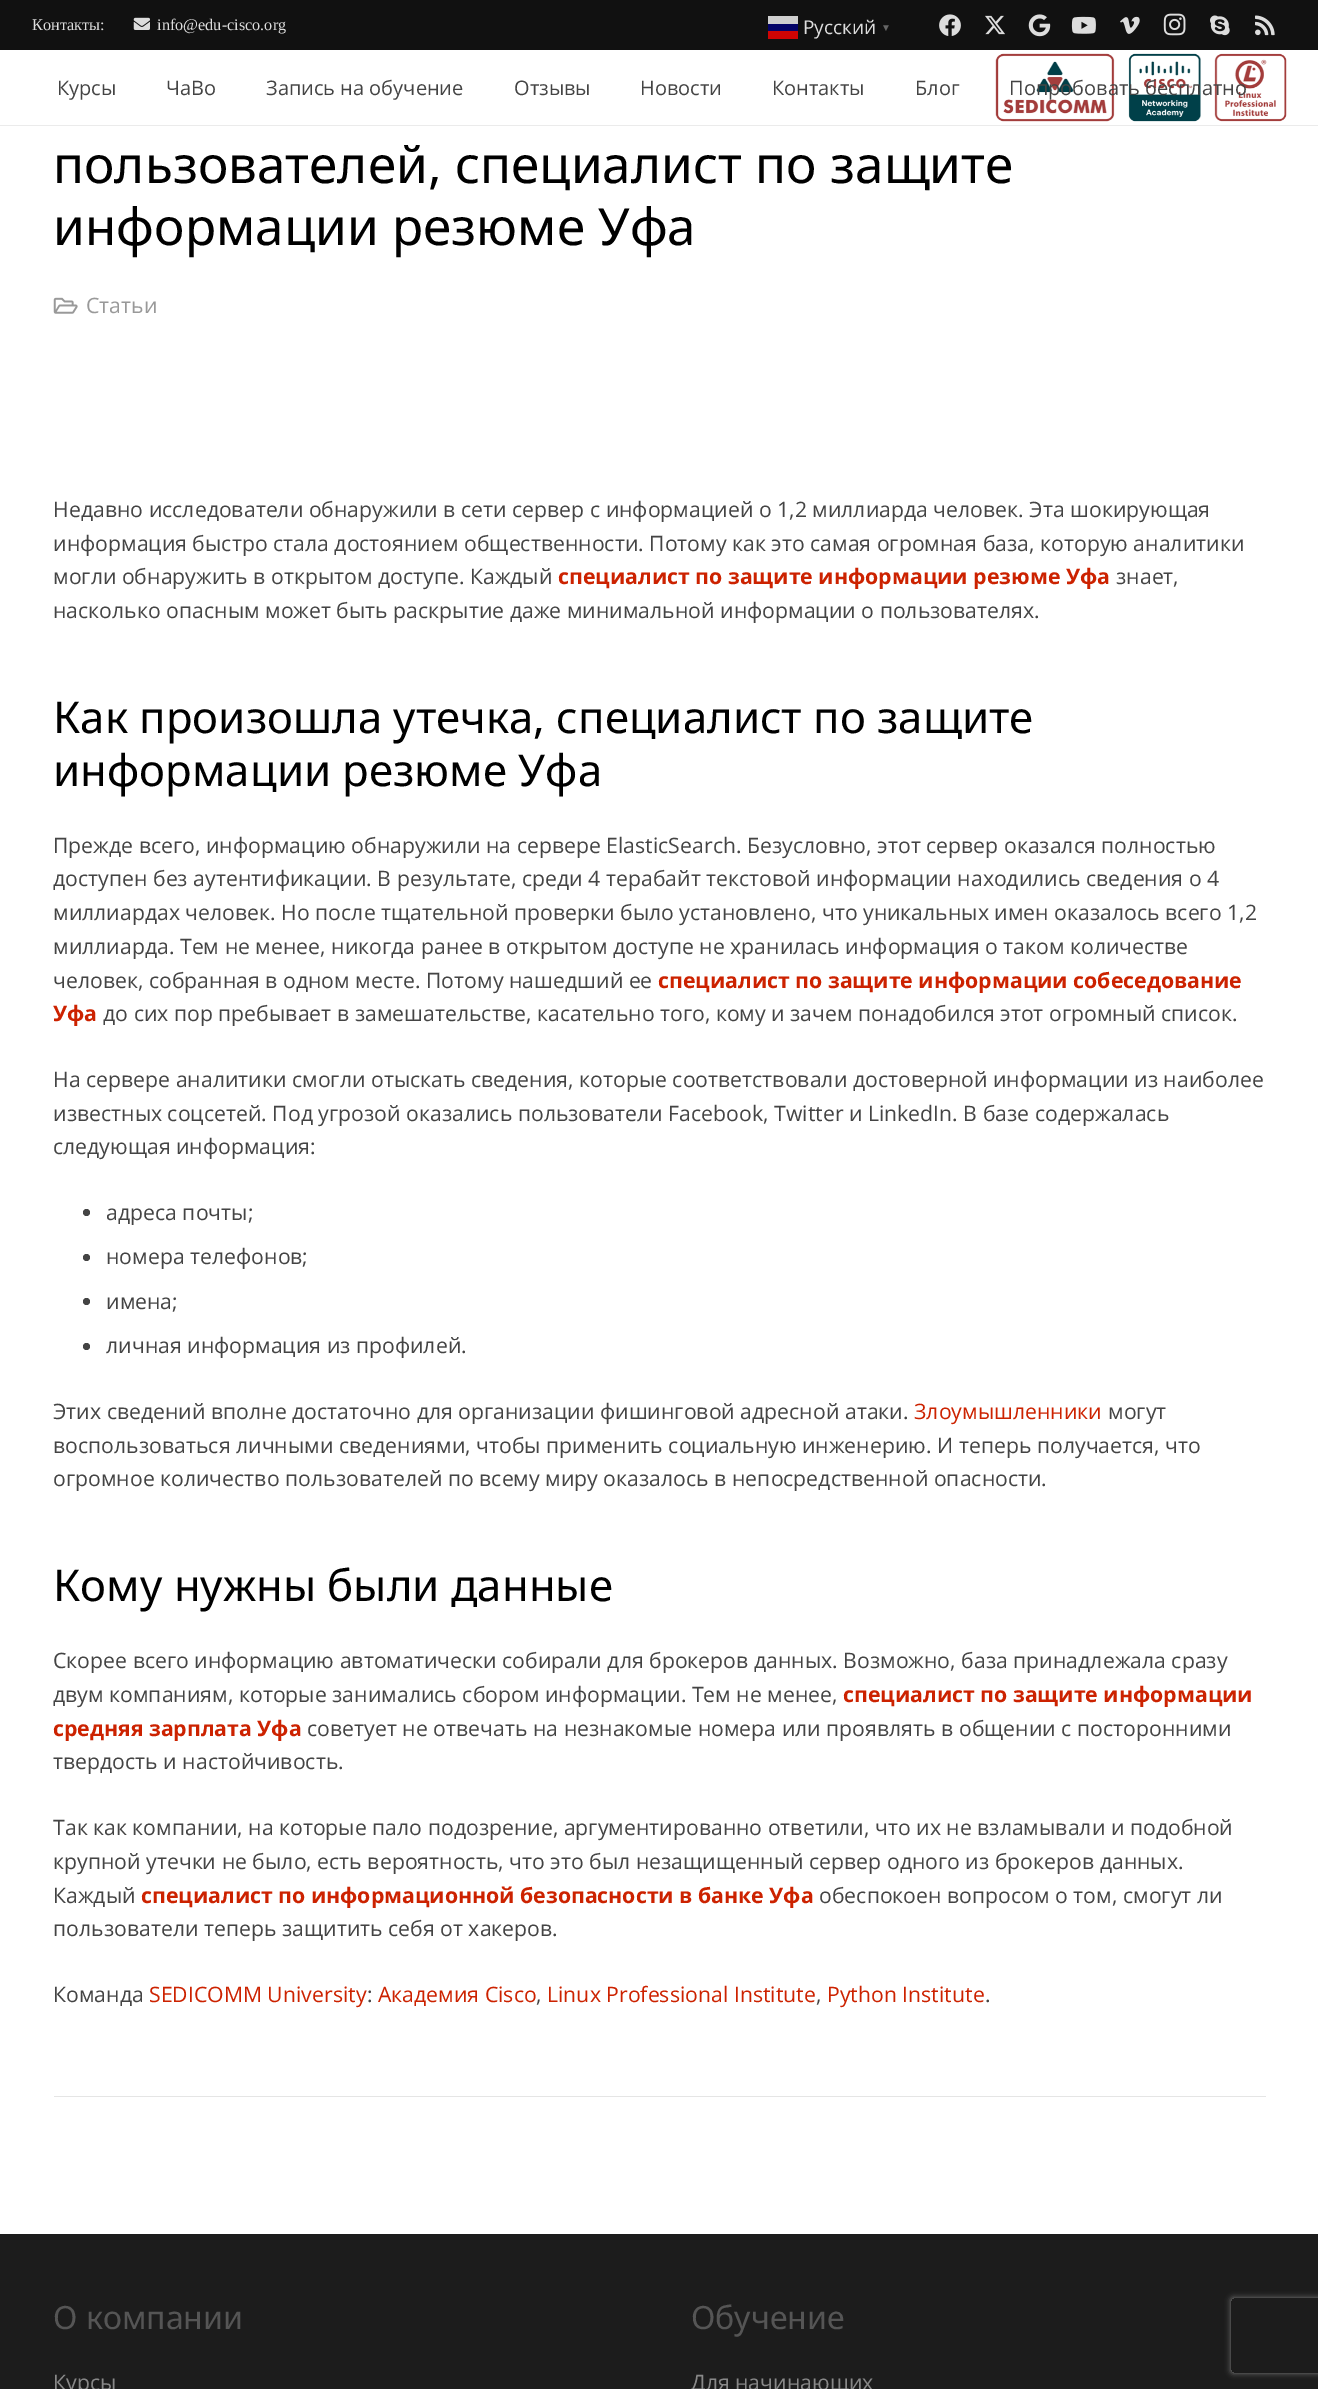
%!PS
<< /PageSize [1318 2389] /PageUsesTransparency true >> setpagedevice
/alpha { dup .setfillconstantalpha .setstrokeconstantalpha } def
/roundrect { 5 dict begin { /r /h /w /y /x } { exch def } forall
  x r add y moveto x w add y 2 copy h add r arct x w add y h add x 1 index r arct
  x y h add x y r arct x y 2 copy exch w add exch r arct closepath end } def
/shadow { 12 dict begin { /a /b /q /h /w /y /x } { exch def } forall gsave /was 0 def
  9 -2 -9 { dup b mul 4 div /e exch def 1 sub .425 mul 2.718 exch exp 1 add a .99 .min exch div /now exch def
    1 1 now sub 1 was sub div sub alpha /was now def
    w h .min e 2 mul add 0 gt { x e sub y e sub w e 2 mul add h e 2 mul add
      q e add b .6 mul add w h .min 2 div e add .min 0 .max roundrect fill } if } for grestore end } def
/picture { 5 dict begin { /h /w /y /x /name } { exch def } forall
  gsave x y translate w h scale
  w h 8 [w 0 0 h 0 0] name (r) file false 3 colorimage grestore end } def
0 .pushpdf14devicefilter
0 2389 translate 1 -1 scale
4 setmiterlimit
1 setgray
0 0 1318 2389 rectfill
0.067 setgray
0 0 1318 50 rectfill
/LiberationSerif-Regular [16.25 0 0 -16.25 0 0] selectfont
0.867 setgray
32 30 moveto (Контакты:) show
(img1.rgb) 133 17 17 13 picture
157 30 moveto (info@edu-cisco.org) show
/OpenSans-Regular [19 0 0 -19 0 0] selectfont
803 34 moveto (Русский) show
0.812 setgray
768 16 30 8 rectfill
0.016 0.016 0.408 setrgbcolor
768 24 30 7 rectfill
0.812 0.016 0.016 setrgbcolor
768 31 30 8 rectfill
/LiberationSerif-Bold [10 0 0 -10 0 0] selectfont
0.4 setgray
881 31 moveto (▼) show
(img2.rgb) 939 14 22 22 picture
(img3.rgb) 985 15 20 20 picture
(img4.rgb) 1028 14 23 23 picture
(img5.rgb) 1071 16 25 18 picture
(img6.rgb) 1120 16 20 18 picture
(img7.rgb) 1163 13 23 23 picture
(img8.rgb) 1210 15 20 21 picture
(img9.rgb) 1255 15 20 21 picture
0.08 alpha
0 setgray
newpath 0 125 moveto 0 126 lineto 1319 126 lineto 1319 51 lineto 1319 125 lineto closepath fill
1 alpha
(img10.rgb) 995 53 292 69 picture
/OpenSans-Regular [20 0 0 -20 0 0] selectfont
0.267 setgray
57 95 moveto (Курсы) show
166 95 moveto (ЧаВо) show
266 95 moveto (Запись на обучение) show
514 95 moveto (Отзывы) show
640 95 moveto (Новости) show
772 95 moveto (Контакты) show
915 95 moveto (Блог) show
1009 95 moveto (Попробовать бесплатно) show
/NotoSans-Regular [51.25 0 0 -51.25 0 0] selectfont
0 setgray
53 183 moveto (пользователей, специалист по защите) show
53 245 moveto (информации резюме Уфа) show
(img11.rgb) 53 297 25 17 picture
/OpenSans-Regular [21.25 0 0 -21.25 0 0] selectfont
0.6 setgray
86 313 moveto (Статьи) show
0.267 setgray
53 517 moveto (Недавно исследователи обнаружили в сети сервер с информацией о 1,2 миллиарда человек. Эта шокирующая) show
53 551 moveto (информация быстро стала достоянием общественности. Потому как это самая огромная база, которую аналитики) show
53 584 moveto (могли обнаружить в открытом доступе. Каждый) show
/OpenSans-Bold [21.25 0 0 -21.25 0 0] selectfont
0.8 0.133 0 setrgbcolor
558 584 moveto (специалист по защите информации резюме Уфа) show
/OpenSans-Regular [21.25 0 0 -21.25 0 0] selectfont
0.267 setgray
1116 584 moveto (знает,) show
53 618 moveto (насколько опасным может быть раскрытие даже минимальной информации о пользователях.) show
/NotoSans-Regular [43.75 0 0 -43.75 0 0] selectfont
0 setgray
53 733 moveto (Как произошла утечка, специалист по защите) show
53 786 moveto (информации резюме Уфа) show
/OpenSans-Regular [21.25 0 0 -21.25 0 0] selectfont
0.267 setgray
53 853 moveto (Прежде всего, информацию обнаружили на сервере ElasticSearch. Безусловно, этот сервер оказался полностью) show
53 886 moveto (доступен без аутентификации. В результате, среди 4 терабайт текстовой информации находились сведения о 4) show
53 920 moveto (миллиардах человек. Но после тщательной проверки было установлено, что уникальных имен оказалось всего 1,2) show
53 954 moveto (миллиарда. Тем не менее, никогда ранее в открытом доступе не хранилась информация о таком количестве) show
53 988 moveto (человек, собранная в одном месте. Потому нашедший ее) show
/OpenSans-Bold [21.25 0 0 -21.25 0 0] selectfont
0.8 0.133 0 setrgbcolor
658 988 moveto (специалист по защите информации собеседование) show
53 1021 moveto (Уфа) show
/OpenSans-Regular [21.25 0 0 -21.25 0 0] selectfont
0.267 setgray
103 1021 moveto (до сих пор пребывает в замешательстве, касательно того, кому и зачем понадобился этот огромный список.) show
53 1087 moveto (На сервере аналитики смогли отыскать сведения, которые соответствовали достоверной информации из наиболее) show
53 1121 moveto (известных соцсетей. Под угрозой оказались пользователи Facebook, Twitter и LinkedIn. В базе содержалась) show
53 1154 moveto (следующая информация:) show
newpath 86.5 1212.5 3.5 0 360 arc closepath fill
106 1220 moveto (адреса почты;) show
newpath 86.5 1257.5 3.5 0 360 arc closepath fill
106 1264 moveto (номера телефонов;) show
newpath 86.5 1301.5 3.5 0 360 arc closepath fill
106 1309 moveto (имена;) show
newpath 86.5 1346.5 3.5 0 360 arc closepath fill
106 1353 moveto (личная информация из профилей.) show
53 1419 moveto (Этих сведений вполне достаточно для организации фишинговой адресной атаки.) show
0.8 0.133 0 setrgbcolor
914 1419 moveto (Злоумышленники) show
0.267 setgray
1108 1419 moveto (могут) show
53 1453 moveto (воспользоваться личными сведениями, чтобы применить социальную инженерию. И теперь получается, что) show
53 1486 moveto (огромное количество пользователей по всему миру оказалось в непосредственной опасности.) show
/NotoSans-Regular [43.75 0 0 -43.75 0 0] selectfont
0 setgray
53 1601 moveto (Кому нужны были данные) show
/OpenSans-Regular [21.25 0 0 -21.25 0 0] selectfont
0.267 setgray
53 1668 moveto (Скорее всего информацию автоматически собирали для брокеров данных. Возможно, база принадлежала сразу) show
53 1702 moveto (двум компаниям, которые занимались сбором информации. Тем не менее,) show
/OpenSans-Bold [21.25 0 0 -21.25 0 0] selectfont
0.8 0.133 0 setrgbcolor
843 1702 moveto (специалист по защите информации) show
53 1736 moveto (средняя зарплата Уфа) show
/OpenSans-Regular [21.25 0 0 -21.25 0 0] selectfont
0.267 setgray
307 1736 moveto (советует не отвечать на незнакомые номера или проявлять в общении с посторонними) show
53 1769 moveto (твердость и настойчивость.) show
53 1835 moveto (Так как компании, на которые пало подозрение, аргументированно ответили, что их не взламывали и подобной) show
53 1869 moveto (крупной утечки не было, есть вероятность, что это был незащищенный сервер одного из брокеров данных.) show
53 1903 moveto (Каждый) show
/OpenSans-Bold [21.25 0 0 -21.25 0 0] selectfont
0.8 0.133 0 setrgbcolor
141 1903 moveto (специалист по информационной безопасности в банке Уфа) show
/OpenSans-Regular [21.25 0 0 -21.25 0 0] selectfont
0.267 setgray
819 1903 moveto (обеспокоен вопросом о том, смогут ли) show
53 1936 moveto (пользователи теперь защитить себя от хакеров.) show
53 2002 moveto (Команда) show
0.8 0.133 0 setrgbcolor
149 2002 moveto (SEDICOMM University) show
0.267 setgray
367 2002 moveto (:) show
0.8 0.133 0 setrgbcolor
378 2002 moveto (Академия Cisco) show
0.267 setgray
536 2002 moveto (,) show
0.8 0.133 0 setrgbcolor
547 2002 moveto (Linux Professional Institute) show
0.267 setgray
816 2002 moveto (,) show
0.8 0.133 0 setrgbcolor
827 2002 moveto (Python Institute) show
0.267 setgray
985 2002 moveto (.) show
0.898 setgray
54 2096 1212 1 rectfill
0.11 setgray
0 2234 1318 155 rectfill
/NotoSans-Regular [32 0 0 -32 0 0] selectfont
0.333 setgray
53 2329 moveto (О компании) show
/OpenSans-Regular [21.25 0 0 -21.25 0 0] selectfont
0.533 setgray
53 2390 moveto (Курсы) show
/NotoSans-Regular [32 0 0 -32 0 0] selectfont
0.333 setgray
691 2329 moveto (Обучение) show
/OpenSans-Regular [21.25 0 0 -21.25 0 0] selectfont
0.533 setgray
691 2390 moveto (Для начинающих) show
gsave
newpath 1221 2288 moveto 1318 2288 lineto 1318 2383 lineto 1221 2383 lineto closepath 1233.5 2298 moveto 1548.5 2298 lineto 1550 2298 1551 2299 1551 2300.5 curveto 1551 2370.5 lineto 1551 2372 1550 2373 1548.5 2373 curveto 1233.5 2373 lineto 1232 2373 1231 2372 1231 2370.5 curveto 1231 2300.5 lineto 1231 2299 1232 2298 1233.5 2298 curveto closepath eoclip newpath
0.502 setgray
1231 2298 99 75 2.5 3 1 shadow
grestore
.poppdf14devicefilter showpage
